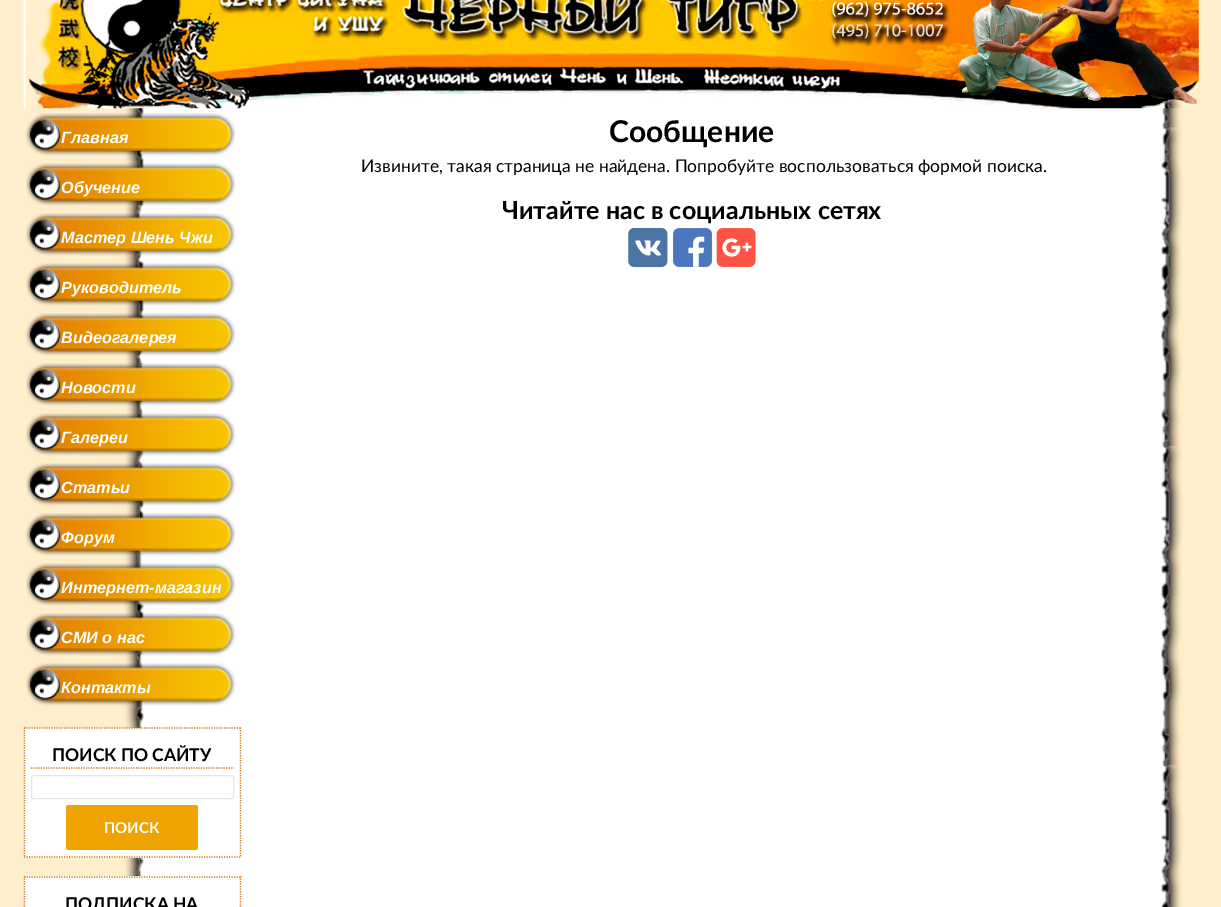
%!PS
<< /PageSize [1221 907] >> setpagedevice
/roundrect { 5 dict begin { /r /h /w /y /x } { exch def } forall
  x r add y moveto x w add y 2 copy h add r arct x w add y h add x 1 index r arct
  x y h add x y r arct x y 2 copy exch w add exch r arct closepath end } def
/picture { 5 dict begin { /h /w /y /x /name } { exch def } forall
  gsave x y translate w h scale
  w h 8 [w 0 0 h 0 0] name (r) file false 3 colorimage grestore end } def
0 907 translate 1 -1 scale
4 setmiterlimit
1 0.933 0.8 setrgbcolor
0 0 1221 907 rectfill
(img1.rgb) 124 108 1058 799 picture
(img2.rgb) 23 0 1176 109 picture
(img3.rgb) 26 113 210 43 picture
/LiberationSans-BoldItalic [16.25 0 0 -16.25 0 0] selectfont
1 setgray
61 143 moveto (Главная) show
(img4.rgb) 26 163 210 43 picture
61 193 moveto (Обучение) show
(img5.rgb) 26 213 210 43 picture
61 243 moveto (Мастер Шень Чжи) show
(img6.rgb) 26 263 210 43 picture
61 293 moveto (Руководитель) show
(img7.rgb) 26 313 210 43 picture
61 343 moveto (Видеогалерея) show
(img8.rgb) 26 363 210 43 picture
61 393 moveto (Новости) show
(img9.rgb) 26 413 210 43 picture
61 443 moveto (Галереи) show
(img10.rgb) 26 463 210 43 picture
61 493 moveto (Статьи) show
(img11.rgb) 26 513 210 43 picture
61 543 moveto (Форум) show
(img12.rgb) 26 563 210 43 picture
61 593 moveto (Интернет-магазин) show
(img13.rgb) 26 613 210 43 picture
61 643 moveto (СМИ о нас) show
(img14.rgb) 26 663 210 43 picture
61 693 moveto (Контакты) show
/Lato-Bold [30 0 0 -30 0 0] selectfont
0 setgray
609 142 moveto (Сообщение) show
/Lato-Regular [17.5 0 0 -17.5 0 0] selectfont
361 172 moveto (Извините, такая страница не найдена. Попробуйте воспользоваться формой поиска.) show
/Lato-Bold [25 0 0 -25 0 0] selectfont
502 219 moveto (Читайте нас в социальных сетях) show
(img15.rgb) 628 228 40 40 picture
(img16.rgb) 673 228 39 39 picture
(img17.rgb) 716 228 40 39 picture
1 setgray
24 728 120 130 rectfill
0.796 0.486 0.098 setrgbcolor
1.2 setlinewidth
[1.25 1.25] 0 setdash
newpath 24 728 moveto 241 728 lineto stroke
newpath 240.5 727.5 moveto 240.5 857.5 lineto stroke
newpath 24 857 moveto 241 857 lineto stroke
newpath 24.5 727.5 moveto 24.5 857.5 lineto stroke
newpath 31 768 moveto 234 768 lineto stroke
/Lato-Bold [17.5 0 0 -17.5 0 0] selectfont
0 setgray
52 761 moveto (ПОИСК ПО САЙТУ) show
0.902 setgray
1 setlinewidth
[] 0 setdash
31.5 775.5 202 23 2 roundrect stroke
0.933 0.639 0 setrgbcolor
66 805 132 45 2.5 roundrect fill
/Lato-Bold [15 0 0 -15 0 0] selectfont
1 setgray
104 833 moveto (ПОИСК) show
24 876 120 31 rectfill
0.796 0.486 0.098 setrgbcolor
1.2 setlinewidth
[1.25 1.25] 0 setdash
newpath 24 877 moveto 241 877 lineto stroke
newpath 240.5 876 moveto 240.5 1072.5 lineto stroke
newpath 24.5 876 moveto 24.5 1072.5 lineto stroke
/Lato-Bold [17.5 0 0 -17.5 0 0] selectfont
0 setgray
65 910 moveto (ПОДПИСКА НА) show
showpage
